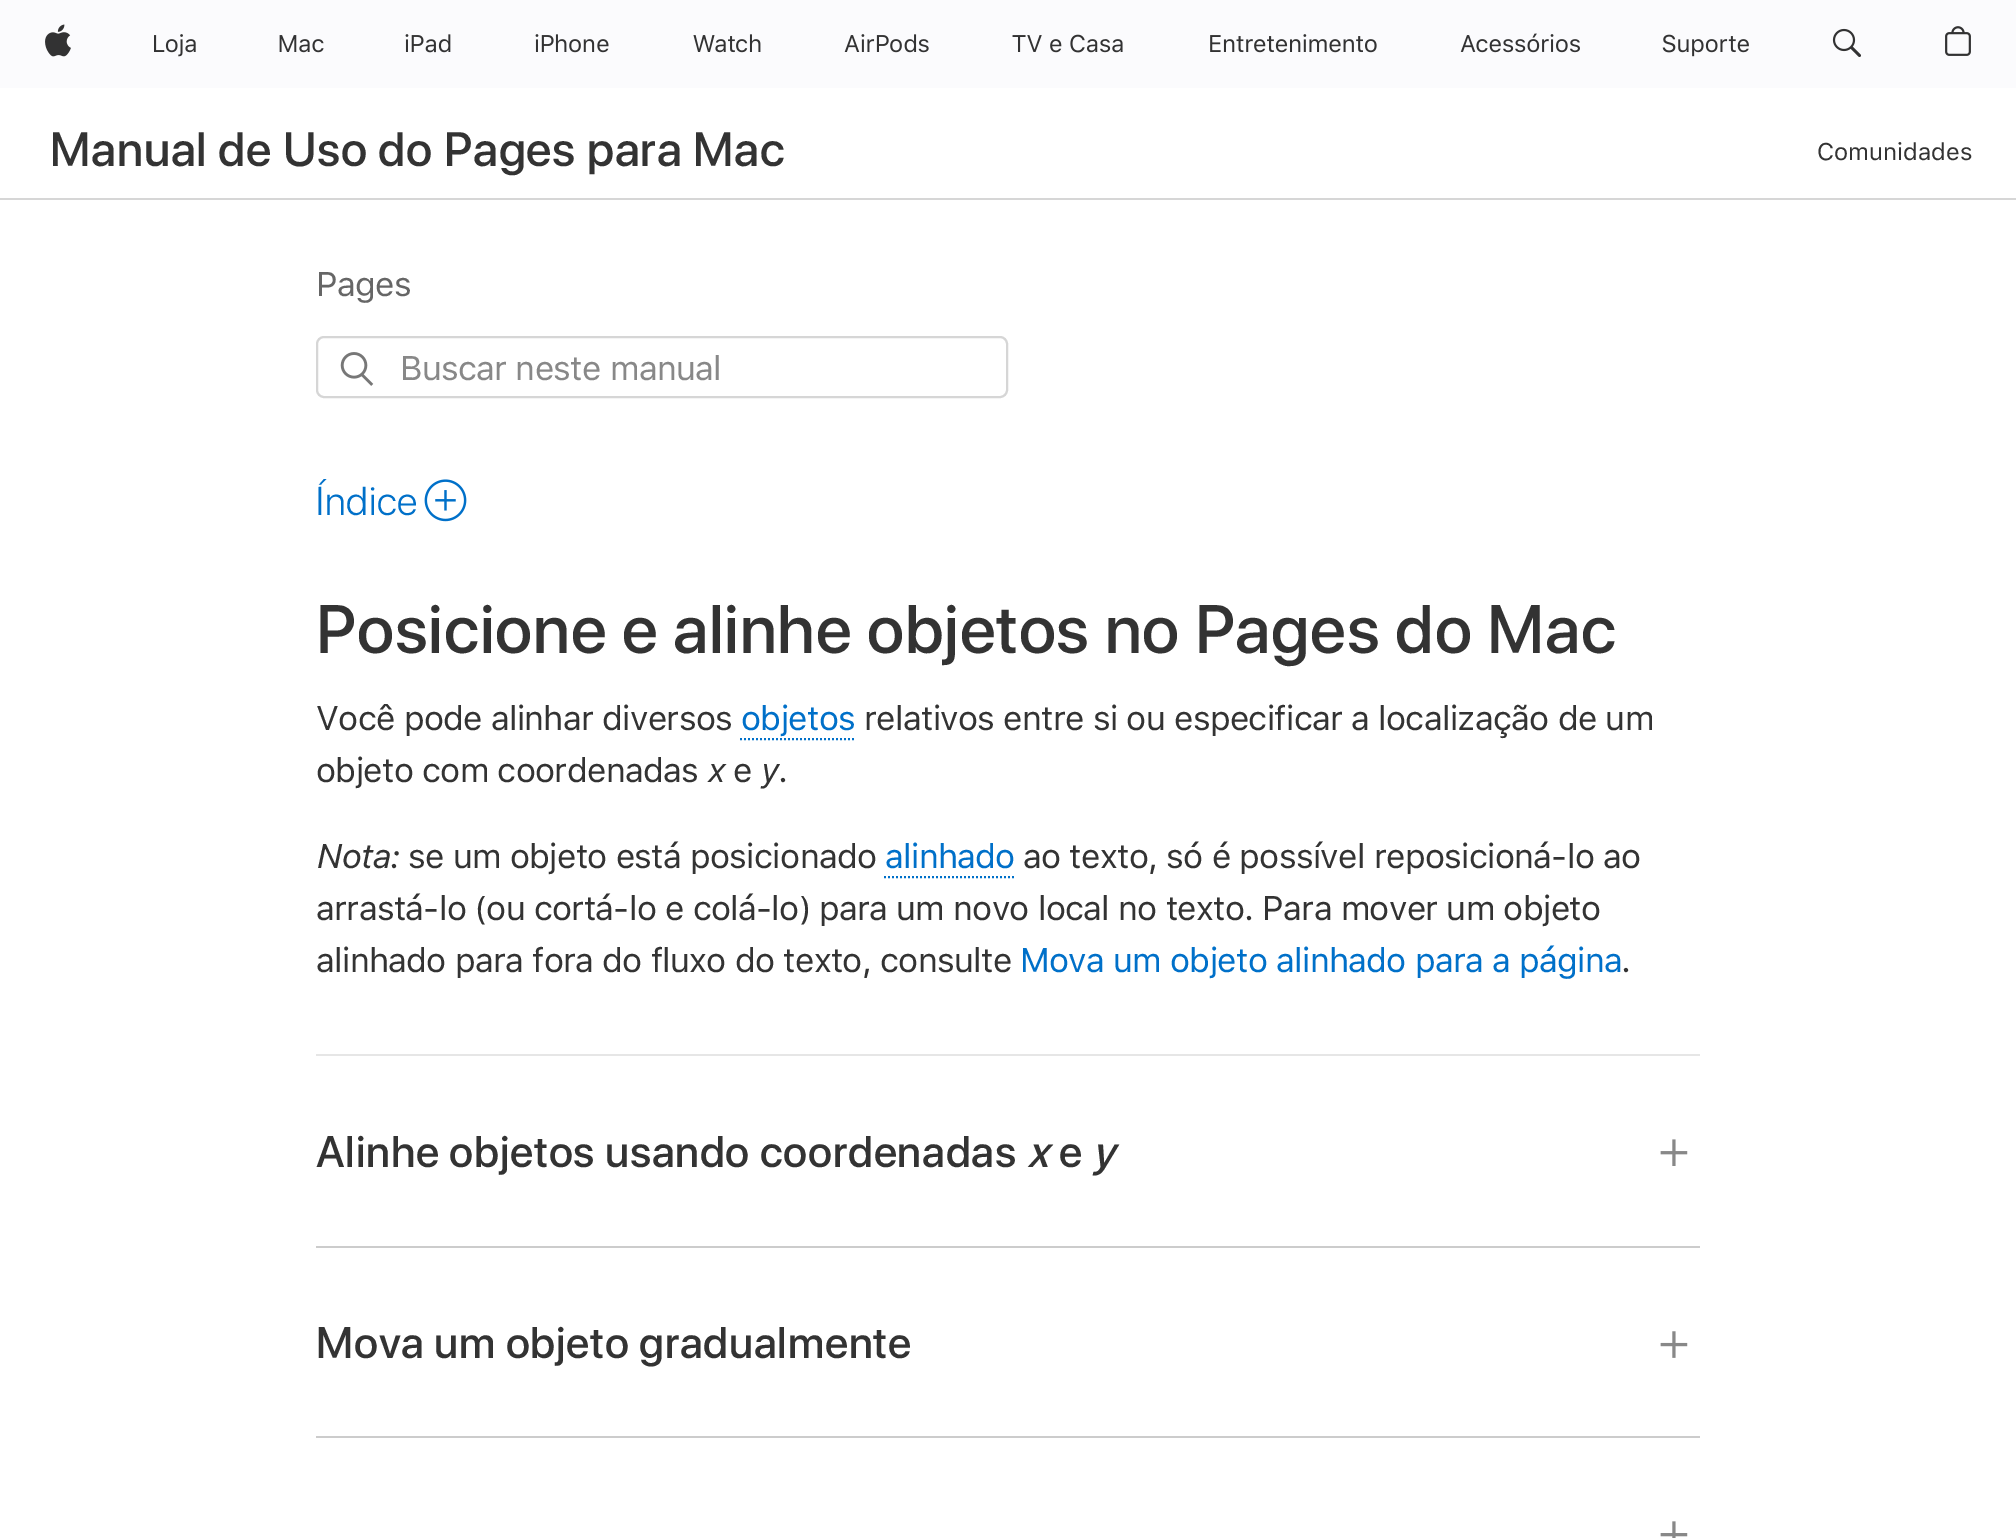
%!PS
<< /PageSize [2016 1538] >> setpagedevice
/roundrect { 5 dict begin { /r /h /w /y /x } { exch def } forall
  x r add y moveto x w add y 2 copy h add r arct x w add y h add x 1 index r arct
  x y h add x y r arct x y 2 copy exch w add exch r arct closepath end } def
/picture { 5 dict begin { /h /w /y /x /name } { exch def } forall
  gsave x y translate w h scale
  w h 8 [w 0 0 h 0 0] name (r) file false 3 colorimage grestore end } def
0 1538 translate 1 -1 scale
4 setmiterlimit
1 setgray
0 0 2016 1538 rectfill
0.984 0.984 0.992 setrgbcolor
0 0 2016 88 rectfill
(img1.rgb) 45 24 26 33 picture
(img2.rgb) 154 34 42 23 picture
(img3.rgb) 279 35 45 18 picture
(img4.rgb) 405 34 46 19 picture
(img5.rgb) 535 34 74 19 picture
(img6.rgb) 693 34 68 19 picture
(img7.rgb) 844 34 85 19 picture
(img8.rgb) 1012 34 111 19 picture
(img9.rgb) 1210 34 167 19 picture
(img10.rgb) 1460 33 120 20 picture
(img11.rgb) 1662 34 87 23 picture
(img12.rgb) 1832 28 29 29 picture
(img13.rgb) 1945 26 26 30 picture
/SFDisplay-Medium [48 0 0 -48 0 0] selectfont
0.2 setgray
50 166 moveto 0.75 0 (Manual de Uso do Pages para Mac) ashow
/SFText-Regular [24 0 0 -24 0 0] selectfont
1817 160 moveto (Comunidades) show
0.839 setgray
0 198 2016 2 rectfill
/SFText-Regular [34 0 0 -34 0 0] selectfont
0.4 setgray
316 296 moveto -0.7 0 (Pages) ashow
0.839 setgray
2 setlinewidth
317 337 690 60 7 roundrect stroke
(img14.rgb) 340 352 34 34 picture
0.533 setgray
400 380 moveto -0.7 0 (Buscar neste manual) ashow
/SFDisplay-Light [40 0 0 -40 0 0] selectfont
0 0.439 0.788 setrgbcolor
316 515 moveto 0.7 0 (Índice) ashow
(img15.rgb) 424 479 43 43 picture
/SFDisplay-Medium [68 0 0 -68 0 0] selectfont
0.2 setgray
316 653 moveto 0.7 0 (Posicione e alinhe objetos no Pages do Mac) ashow
/SFText-Regular [34 0 0 -34 0 0] selectfont
316 730 moveto -0.7 0 (Você pode alinhar diversos) ashow
0 0.439 0.788 setrgbcolor
741 730 moveto -0.7 0 (objetos) ashow
[2 2] 0 setdash
newpath 740 739 moveto 854 739 lineto stroke
0.2 setgray
864 730 moveto -0.7 0 (relativos entre si ou especificar a localização de um) ashow
316 782 moveto -0.7 0 (objeto com coordenadas) ashow
/SFText-Italic [34 0 0 -34 0 0] selectfont
707 782 moveto -0.7 0 (x) ashow
/SFText-Regular [34 0 0 -34 0 0] selectfont
733 782 moveto -0.7 0 (e) ashow
/SFText-Italic [34 0 0 -34 0 0] selectfont
760 782 moveto -0.7 0 (y) ashow
/SFText-Regular [34 0 0 -34 0 0] selectfont
778 782 moveto -0.7 0 (.) ashow
/SFText-Italic [34 0 0 -34 0 0] selectfont
316 868 moveto -0.7 0 (Nota:) ashow
/SFText-Regular [34 0 0 -34 0 0] selectfont
408 868 moveto -0.7 0 (se um objeto está posicionado) ashow
0 0.439 0.788 setrgbcolor
885 868 moveto -0.7 0 (alinhado) ashow
newpath 884 877 moveto 1014 877 lineto stroke
0.2 setgray
1023 868 moveto -0.7 0 (ao texto, só é possível reposicioná-lo ao) ashow
316 920 moveto -0.7 0 (arrastá-lo \(ou cortá-lo e colá-lo\) para um novo local no texto. Para mover um objeto) ashow
316 972 moveto -0.7 0 (alinhado para fora do fluxo do texto, consulte) ashow
0 0.439 0.788 setrgbcolor
1020 972 moveto -0.7 0 (Mova um objeto alinhado para a página) ashow
0.2 setgray
1621 972 moveto -0.7 0 (.) ashow
0.902 setgray
316 1054 1384 2 rectfill
/SFDisplay-Medium [44 0 0 -44 0 0] selectfont
0.2 setgray
316 1167 moveto 0.7 0 (Alinhe objetos usando coordenadas) ashow
/SFDisplay-MediumItalic [44 0 0 -44 0 0] selectfont
1027 1167 moveto 0.7 0 (x) ashow
/SFDisplay-Medium [44 0 0 -44 0 0] selectfont
1059 1167 moveto 0.7 0 (e) ashow
/SFDisplay-MediumItalic [44 0 0 -44 0 0] selectfont
1092 1167 moveto 0.7 0 (y) ashow
(img16.rgb) 1660 1139 28 27 picture
0.8 setgray
316 1246 1384 2 rectfill
/SFDisplay-Medium [44 0 0 -44 0 0] selectfont
0.2 setgray
316 1358 moveto 0.7 0 (Mova um objeto gradualmente) ashow
(img17.rgb) 1660 1331 28 27 picture
0.8 setgray
316 1436 1384 2 rectfill
(img18.rgb) 1660 1521 28 17 picture
showpage
